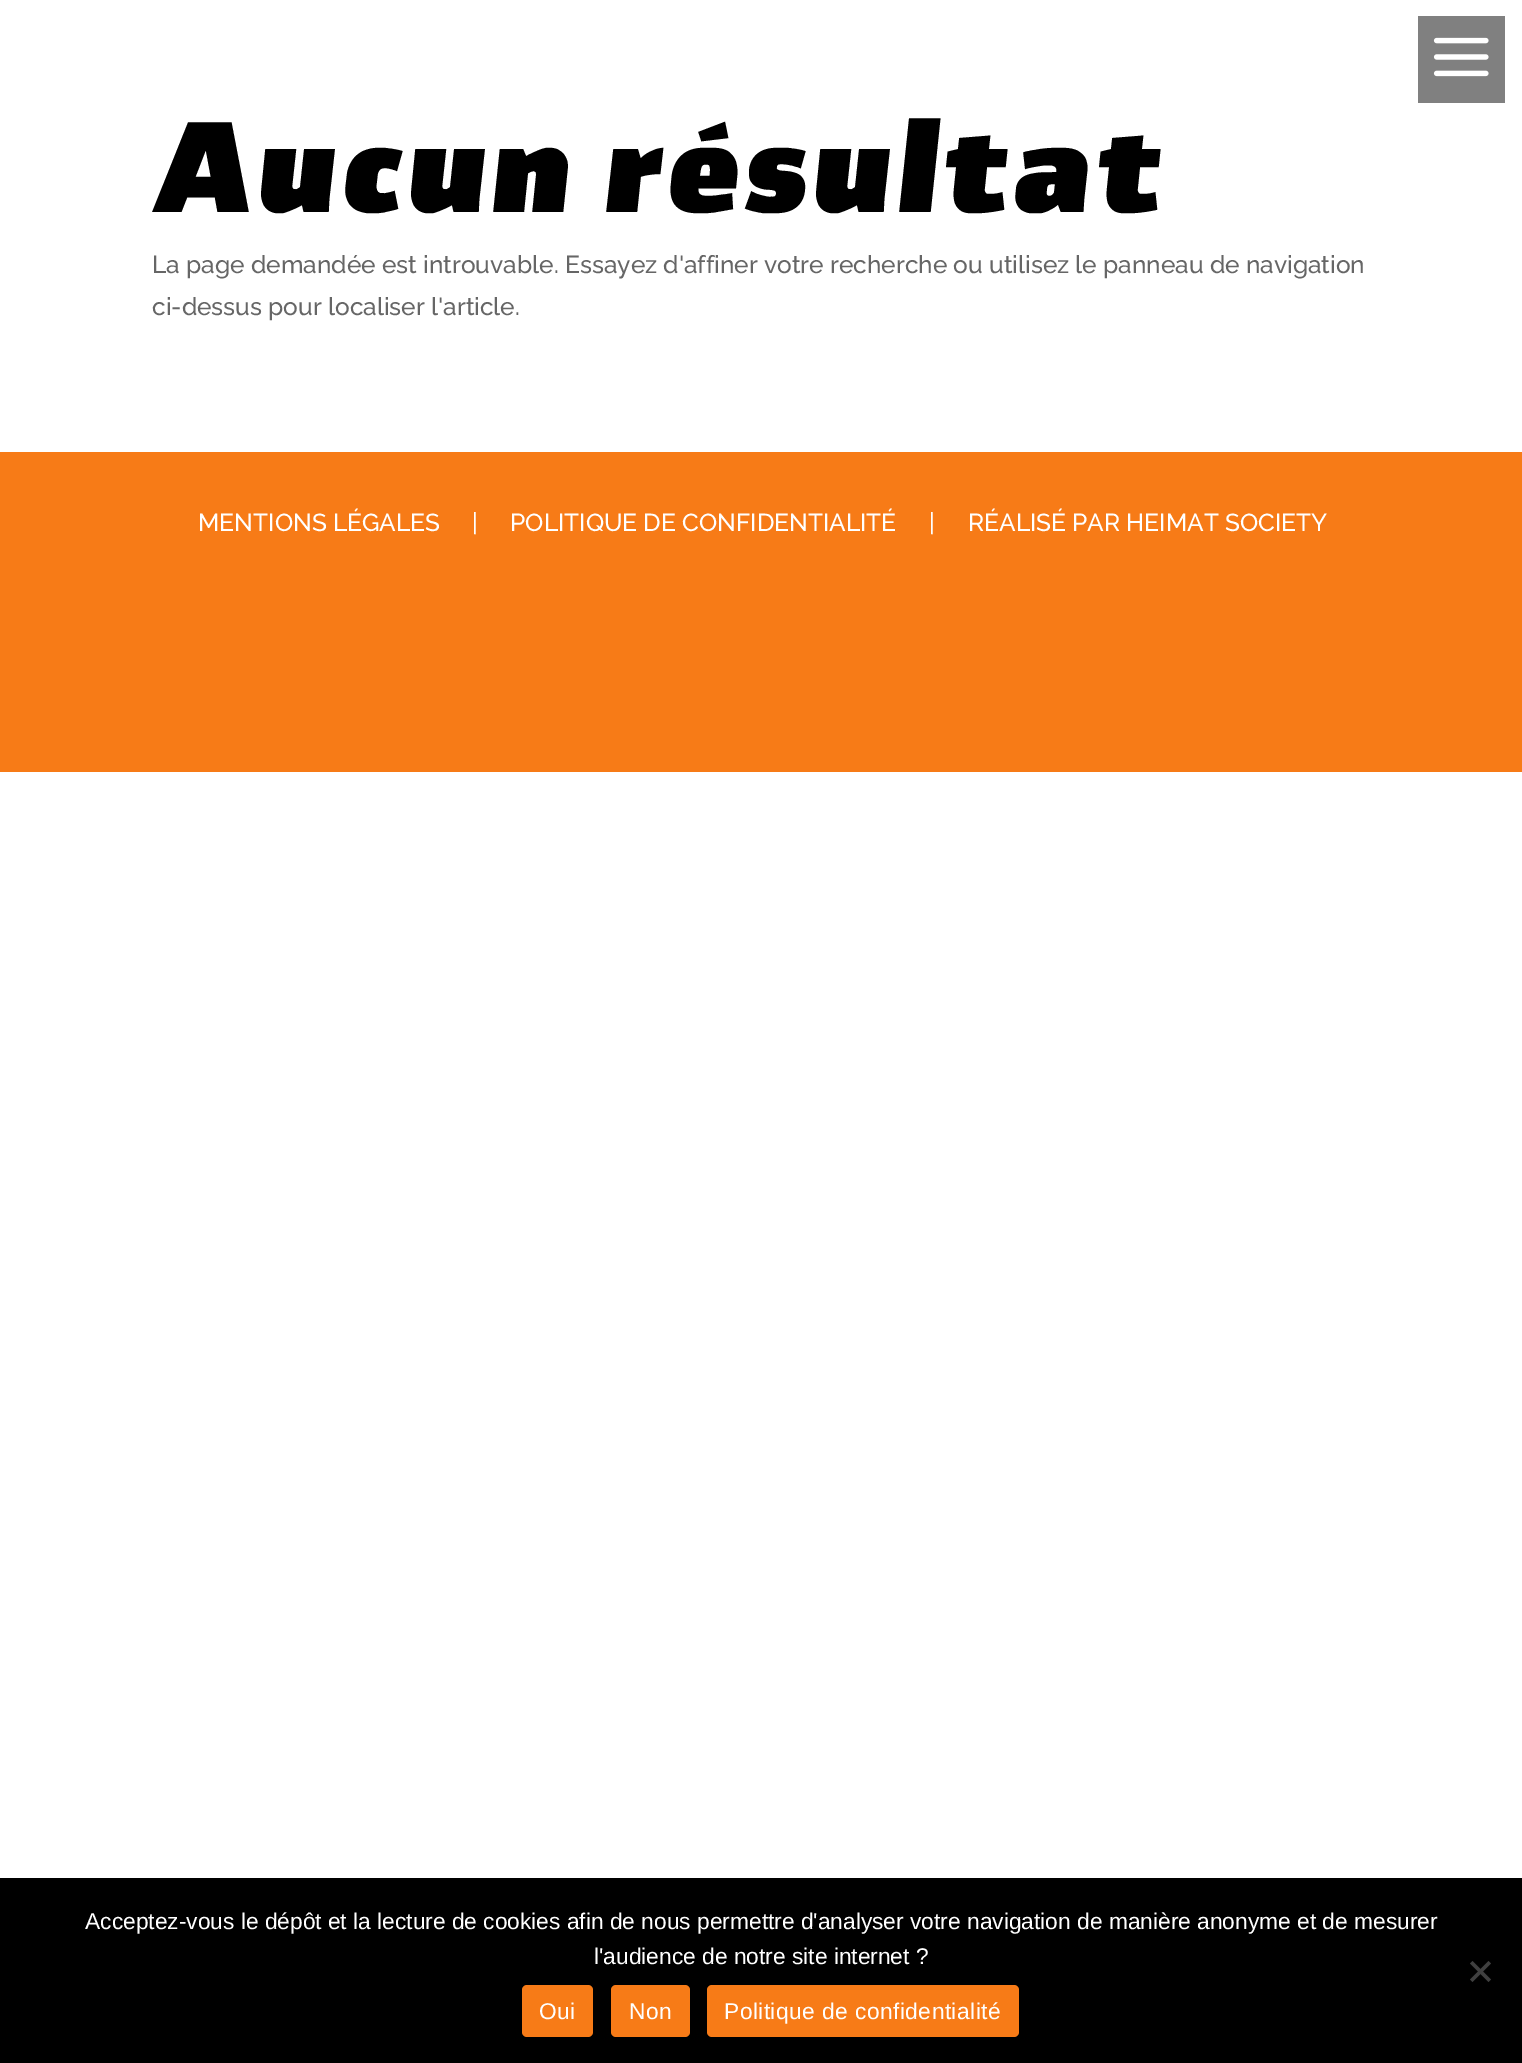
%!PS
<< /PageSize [1522 2063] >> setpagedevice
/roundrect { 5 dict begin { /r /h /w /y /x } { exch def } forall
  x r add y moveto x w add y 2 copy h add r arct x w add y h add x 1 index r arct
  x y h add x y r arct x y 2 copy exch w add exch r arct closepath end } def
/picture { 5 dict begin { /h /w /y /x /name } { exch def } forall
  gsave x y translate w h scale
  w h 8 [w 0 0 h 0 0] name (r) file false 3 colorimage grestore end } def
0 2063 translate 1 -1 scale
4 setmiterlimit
1 setgray
0 0 1522 2063 rectfill
0.502 setgray
1418 16 87 87 rectfill
(img1.rgb) 1433 37 56 40 picture
/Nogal-SemiBold [126 0 0 -126 0 0] selectfont
0 setgray
152 212 moveto (Aucun résultat) show
/Raleway-Medium [24.5 0 0 -24.5 0 0] selectfont
0.4 setgray
152 273 moveto (La page demandée est introuvable. Essayez d'affiner votre recherche ou utilisez le panneau de navigation) show
152 315 moveto (ci-dessus pour localiser l'article.) show
0.969 0.482 0.09 setrgbcolor
0 452 1522 320 rectfill
1 setgray
198 531 moveto (MENTIONS LÉGALES) show
472 531 moveto (|) show
510 531 moveto (POLITIQUE DE CONFIDENTIALITÉ) show
929 531 moveto (|) show
968 531 moveto (RÉALISÉ PAR HEIMAT SOCIETY) show
0 setgray
0 1878 1522 185 rectfill
/LiberationSans-Regular [22.75 0 0 -22.75 0 0] selectfont
1 setgray
85 1929 moveto (Acceptez-vous le dépôt et la lecture de cookies afin de nous permettre d'analyser votre navigation de manière anonyme et de mesurer) show
594 1964 moveto (l'audience de notre site internet ?) show
0.251 setgray
newpath 1488.5 1961 moveto 1491 1963.5 lineto 1472.5 1982 lineto 1470 1979.5 lineto closepath fill
newpath 1470 1963.5 moveto 1472.5 1961 lineto 1491 1979.5 lineto 1488.5 1982 lineto closepath fill
0.969 0.482 0.09 setrgbcolor
522 1985 71 52 5 roundrect fill
1 setgray
539 2019 moveto 0.45 0 (Oui) ashow
0.969 0.482 0.09 setrgbcolor
611 1985 79 52 5 roundrect fill
1 setgray
629 2019 moveto 0.45 0 (Non) ashow
0.969 0.482 0.09 setrgbcolor
707 1985 312 52 5 roundrect fill
1 setgray
724 2019 moveto 0.45 0 (Politique de confidentialité) ashow
showpage
